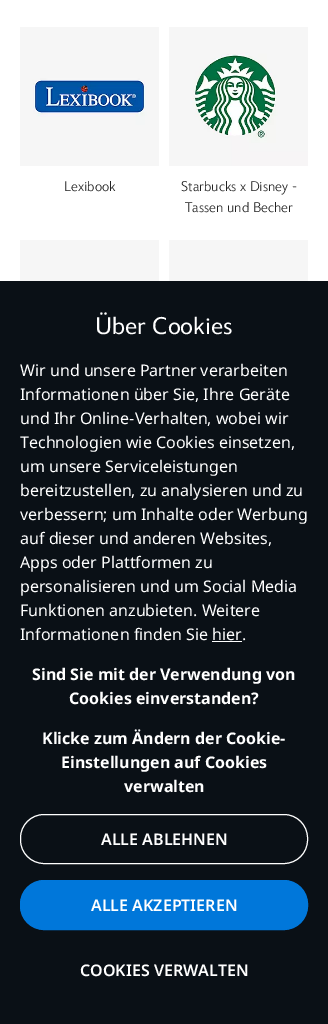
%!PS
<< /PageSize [328 1024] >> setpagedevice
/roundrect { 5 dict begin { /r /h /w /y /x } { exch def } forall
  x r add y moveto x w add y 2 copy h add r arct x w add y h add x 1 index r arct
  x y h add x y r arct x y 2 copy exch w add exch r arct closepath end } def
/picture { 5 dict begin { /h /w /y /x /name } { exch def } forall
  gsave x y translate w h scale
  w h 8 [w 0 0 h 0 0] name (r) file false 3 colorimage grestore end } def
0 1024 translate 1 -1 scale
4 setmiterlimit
1 setgray
0 0 328 1024 rectfill
(img1.rgb) 20 27 139 139 picture
/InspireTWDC-Light [14 0 0 -14 0 0] selectfont
0.133 setgray
64 191 moveto (Lexibook) show
(img2.rgb) 169 27 139 139 picture
181 191 moveto (Starbucks x Disney -) show
185 212 moveto (Tassen und Becher) show
(img3.rgb) 20 240 139 41 picture
(img3.rgb) 169 240 139 41 picture
0.039 0.063 0.086 setrgbcolor
0 281 328 743 rectfill
/InspireTWDC-Regular [24 0 0 -24 0 0] selectfont
1 setgray
95 334 moveto (Über Cookies) show
/NotoSans-Regular [16 0 0 -16 0 0] selectfont
20 376 moveto (Wir und unsere Partner verarbeiten) show
20 400 moveto (Informationen über Sie, Ihre Geräte) show
20 424 moveto (und Ihr Online-Verhalten, wobei wir) show
20 448 moveto (Technologien wie Cookies einsetzen,) show
20 472 moveto (um unsere Serviceleistungen) show
20 496 moveto (bereitzustellen, zu analysieren und zu) show
20 520 moveto (verbessern; um Inhalte oder Werbung) show
20 544 moveto (auf dieser und anderen Websites,) show
20 568 moveto (Apps oder Plattformen zu) show
20 592 moveto (personalisieren und um Social Media) show
20 616 moveto (Funktionen anzubieten. Weitere) show
20 640 moveto (Informationen finden Sie hier.) show
212 641 30 1 rectfill
/NotoSans-Bold [16 0 0 -16 0 0] selectfont
32 680 moveto (Sind Sie mit der Verwendung von) show
69 704 moveto (Cookies einverstanden?) show
42 744 moveto (Klicke zum Ändern der Cookie-) show
61 768 moveto (Einstellungen auf Cookies) show
124 792 moveto (verwalten) show
20.5 814.5 287 49 23.5 roundrect stroke
/NotoSans-SemiBold [16 0 0 -16 0 0] selectfont
101 845 moveto (ALLE ABLEHNEN) show
0 0.467 0.855 setrgbcolor
20.5 880.5 287 49 23.5 roundrect gsave fill grestore
stroke
1 setgray
91 911 moveto (ALLE AKZEPTIEREN) show
80 976 moveto (COOKIES VERWALTEN) show
showpage
